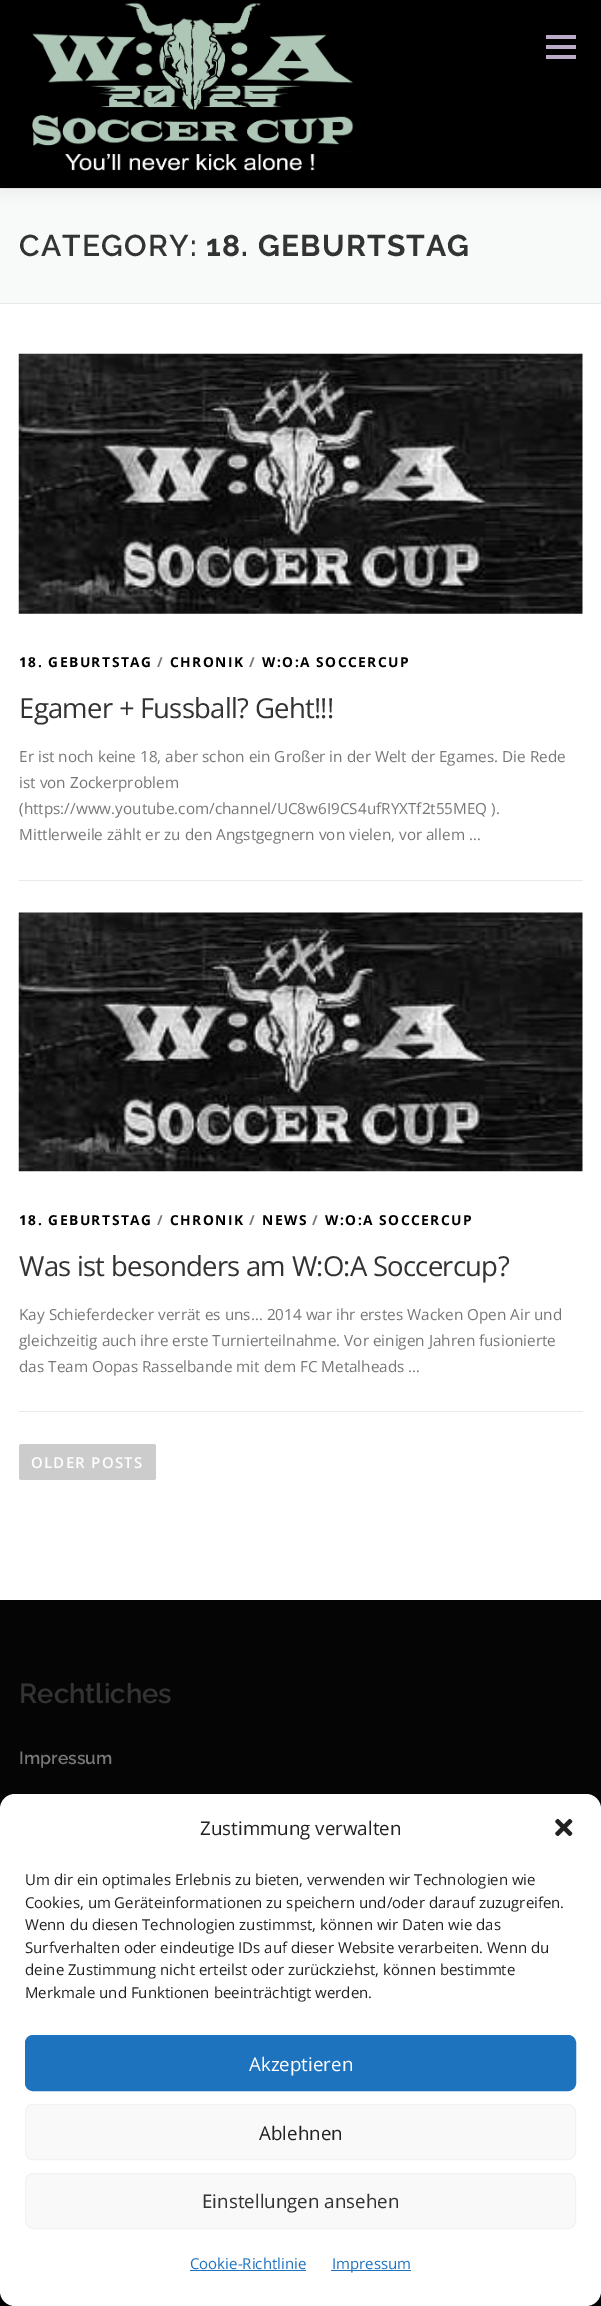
%!PS
<< /PageSize [601 2306] /PageUsesTransparency true >> setpagedevice
/alpha { dup .setfillconstantalpha .setstrokeconstantalpha } def
/roundrect { 5 dict begin { /r /h /w /y /x } { exch def } forall
  x r add y moveto x w add y 2 copy h add r arct x w add y h add x 1 index r arct
  x y h add x y r arct x y 2 copy exch w add exch r arct closepath end } def
/shadow { 12 dict begin { /a /b /q /h /w /y /x } { exch def } forall gsave /was 0 def
  9 -2 -9 { dup b mul 4 div /e exch def 1 sub .425 mul 2.718 exch exp 1 add a .99 .min exch div /now exch def
    1 1 now sub 1 was sub div sub alpha /was now def
    w h .min e 2 mul add 0 gt { x e sub y e sub w e 2 mul add h e 2 mul add
      q e add b .6 mul add w h .min 2 div e add .min 0 .max roundrect fill } if } for grestore end } def
/picture { 5 dict begin { /h /w /y /x /name } { exch def } forall
  gsave x y translate w h scale
  w h 8 [w 0 0 h 0 0] name (r) file false 3 colorimage grestore end } def
0 .pushpdf14devicefilter
0 2306 translate 1 -1 scale
4 setmiterlimit
1 setgray
0 0 601 2306 rectfill
0.973 0.976 0.976 setrgbcolor
0 189 601 114 rectfill
0.914 setgray
0 188 601 1 rectfill
0.196 setgray
0 6 601 188 0 6 0.06 shadow
0 setgray
0 0 601 188 rectfill
(img1.rgb) 32 2 322 169 picture
0.733 0.671 0.788 setrgbcolor
546 45 30 4 rectfill
546 35 30 4 rectfill
546 55 30 4 rectfill
0.914 setgray
0 303 601 1 rectfill
/Raleway-SemiBold [30 0 0 -30 0 0] selectfont
0.2 setgray
19 256 moveto 1.25 0 (CATEGORY:) ashow
/Raleway-Bold [30 0 0 -30 0 0] selectfont
206 256 moveto 1.25 0 (18. GEBURTSTAG) ashow
(img2.rgb) 18 353 565 261 picture
/OpenSans-Bold [13.75 0 0 -13.75 0 0] selectfont
0 setgray
19 667 moveto 1.5 0 (18. GEBURTSTAG) ashow
0.467 setgray
157 667 moveto 1.5 0 (/) ashow
0 setgray
170 667 moveto 1.5 0 (CHRONIK) ashow
0.467 setgray
249 667 moveto 1.5 0 (/) ashow
0 setgray
262 667 moveto 1.5 0 (W:O:A SOCCERCUP) ashow
/OpenSans-Regular [27.5 0 0 -27.5 0 0] selectfont
0.2 setgray
19 718 moveto -0.75 0 (Egamer + Fussball? Geht!!!) ashow
/OpenSans-Regular [15.3 0 0 -15.3 0 0] selectfont
0.467 setgray
19 762 moveto (Er ist noch keine 18, aber schon ein Großer in der Welt der Egames. Die Rede) show
19 788 moveto (ist von Zockerproblem) show
19 814 moveto (\(https://www.youtube.com/channel/UC8w6I9CS4ufRYXTf2t55MEQ \).) show
19 840 moveto (Mittlerweile zählt er zu den Angstgegnern von vielen, vor allem …) show
0.914 setgray
19 880 564 1 rectfill
19 1411 564 1 rectfill
(img3.rgb) 18 912 565 260 picture
/OpenSans-Bold [13.75 0 0 -13.75 0 0] selectfont
0 setgray
19 1225 moveto 1.5 0 (18. GEBURTSTAG) ashow
0.467 setgray
157 1225 moveto 1.5 0 (/) ashow
0 setgray
170 1225 moveto 1.5 0 (CHRONIK) ashow
0.467 setgray
249 1225 moveto 1.5 0 (/) ashow
0 setgray
262 1225 moveto 1.5 0 (NEWS) ashow
0.467 setgray
312 1225 moveto 1.5 0 (/) ashow
0 setgray
325 1225 moveto 1.5 0 (W:O:A SOCCERCUP) ashow
/OpenSans-Regular [27.5 0 0 -27.5 0 0] selectfont
0.2 setgray
19 1276 moveto -0.75 0 (Was ist besonders am W:O:A Soccercup?) ashow
/OpenSans-Regular [15.3 0 0 -15.3 0 0] selectfont
0.467 setgray
19 1320 moveto (Kay Schieferdecker verrät es uns… 2014 war ihr erstes Wacken Open Air und) show
19 1346 moveto (gleichzeitig auch ihre erste Turnierteilnahme. Vor einigen Jahren fusionierte) show
19 1372 moveto (das Team Oopas Rasselbande mit dem FC Metalheads …) show
0.8 setgray
19 1444 137 36 2.5 roundrect fill
/OpenSans-SemiBold [15 0 0 -15 0 0] selectfont
1 setgray
31 1468 moveto 1.25 0 (OLDER POSTS) ashow
0.02 setgray
0 1600 601 209 rectfill
/Raleway-SemiBold [27.5 0 0 -27.5 0 0] selectfont
0.2 setgray
19 1703 moveto (Rechtliches) show
/Raleway-SemiBold [17.5 0 0 -17.5 0 0] selectfont
0.467 setgray
19 1764 moveto (Impressum) show
0 setgray
0 2291 601 15 rectfill
1 setgray
0 1794 601 512 15 roundrect fill
/OpenSans-Regular [18.75 0 0 -18.75 0 0] selectfont
0.133 setgray
200 1835 moveto (Zustimmung verwalten) show
(img4.rgb) 555 1818 18 19 picture
/OpenSans-Regular [15 0 0 -15 0 0] selectfont
25 1885 moveto (Um dir ein optimales Erlebnis zu bieten, verwenden wir Technologien wie) show
25 1908 moveto (Cookies, um Geräteinformationen zu speichern und/oder darauf zuzugreifen.) show
25 1930 moveto (Wenn du diesen Technologien zustimmst, können wir Daten wie das) show
25 1953 moveto (Surfverhalten oder eindeutige IDs auf dieser Website verarbeiten. Wenn du) show
25 1975 moveto (deine Zustimmung nicht erteilst oder zurückziehst, können bestimmte) show
25 1998 moveto (Merkmale und Funktionen beeinträchtigt werden.) show
0.118 0.451 0.745 setrgbcolor
25.5 2035.5 550 55 7.5 roundrect gsave fill grestore
stroke
/OpenSans-Regular [18.75 0 0 -18.75 0 0] selectfont
1 setgray
249 2071 moveto (Akzeptieren) show
0.976 setgray
25.5 2104.5 550 55 7.5 roundrect gsave fill grestore
0.949 setgray
stroke
0.133 setgray
259 2140 moveto (Ablehnen) show
0.976 setgray
25.5 2173.5 550 55 7.5 roundrect gsave fill grestore
0.949 setgray
stroke
0.2 setgray
202 2208 moveto (Einstellungen ansehen) show
/OpenSans-Regular [15 0 0 -15 0 0] selectfont
0.118 0.451 0.745 setrgbcolor
190 2269 moveto (Cookie-Richtlinie) show
190 2270 116 1 rectfill
331 2270 80 1 rectfill
332 2269 moveto (Impressum) show
.poppdf14devicefilter showpage
